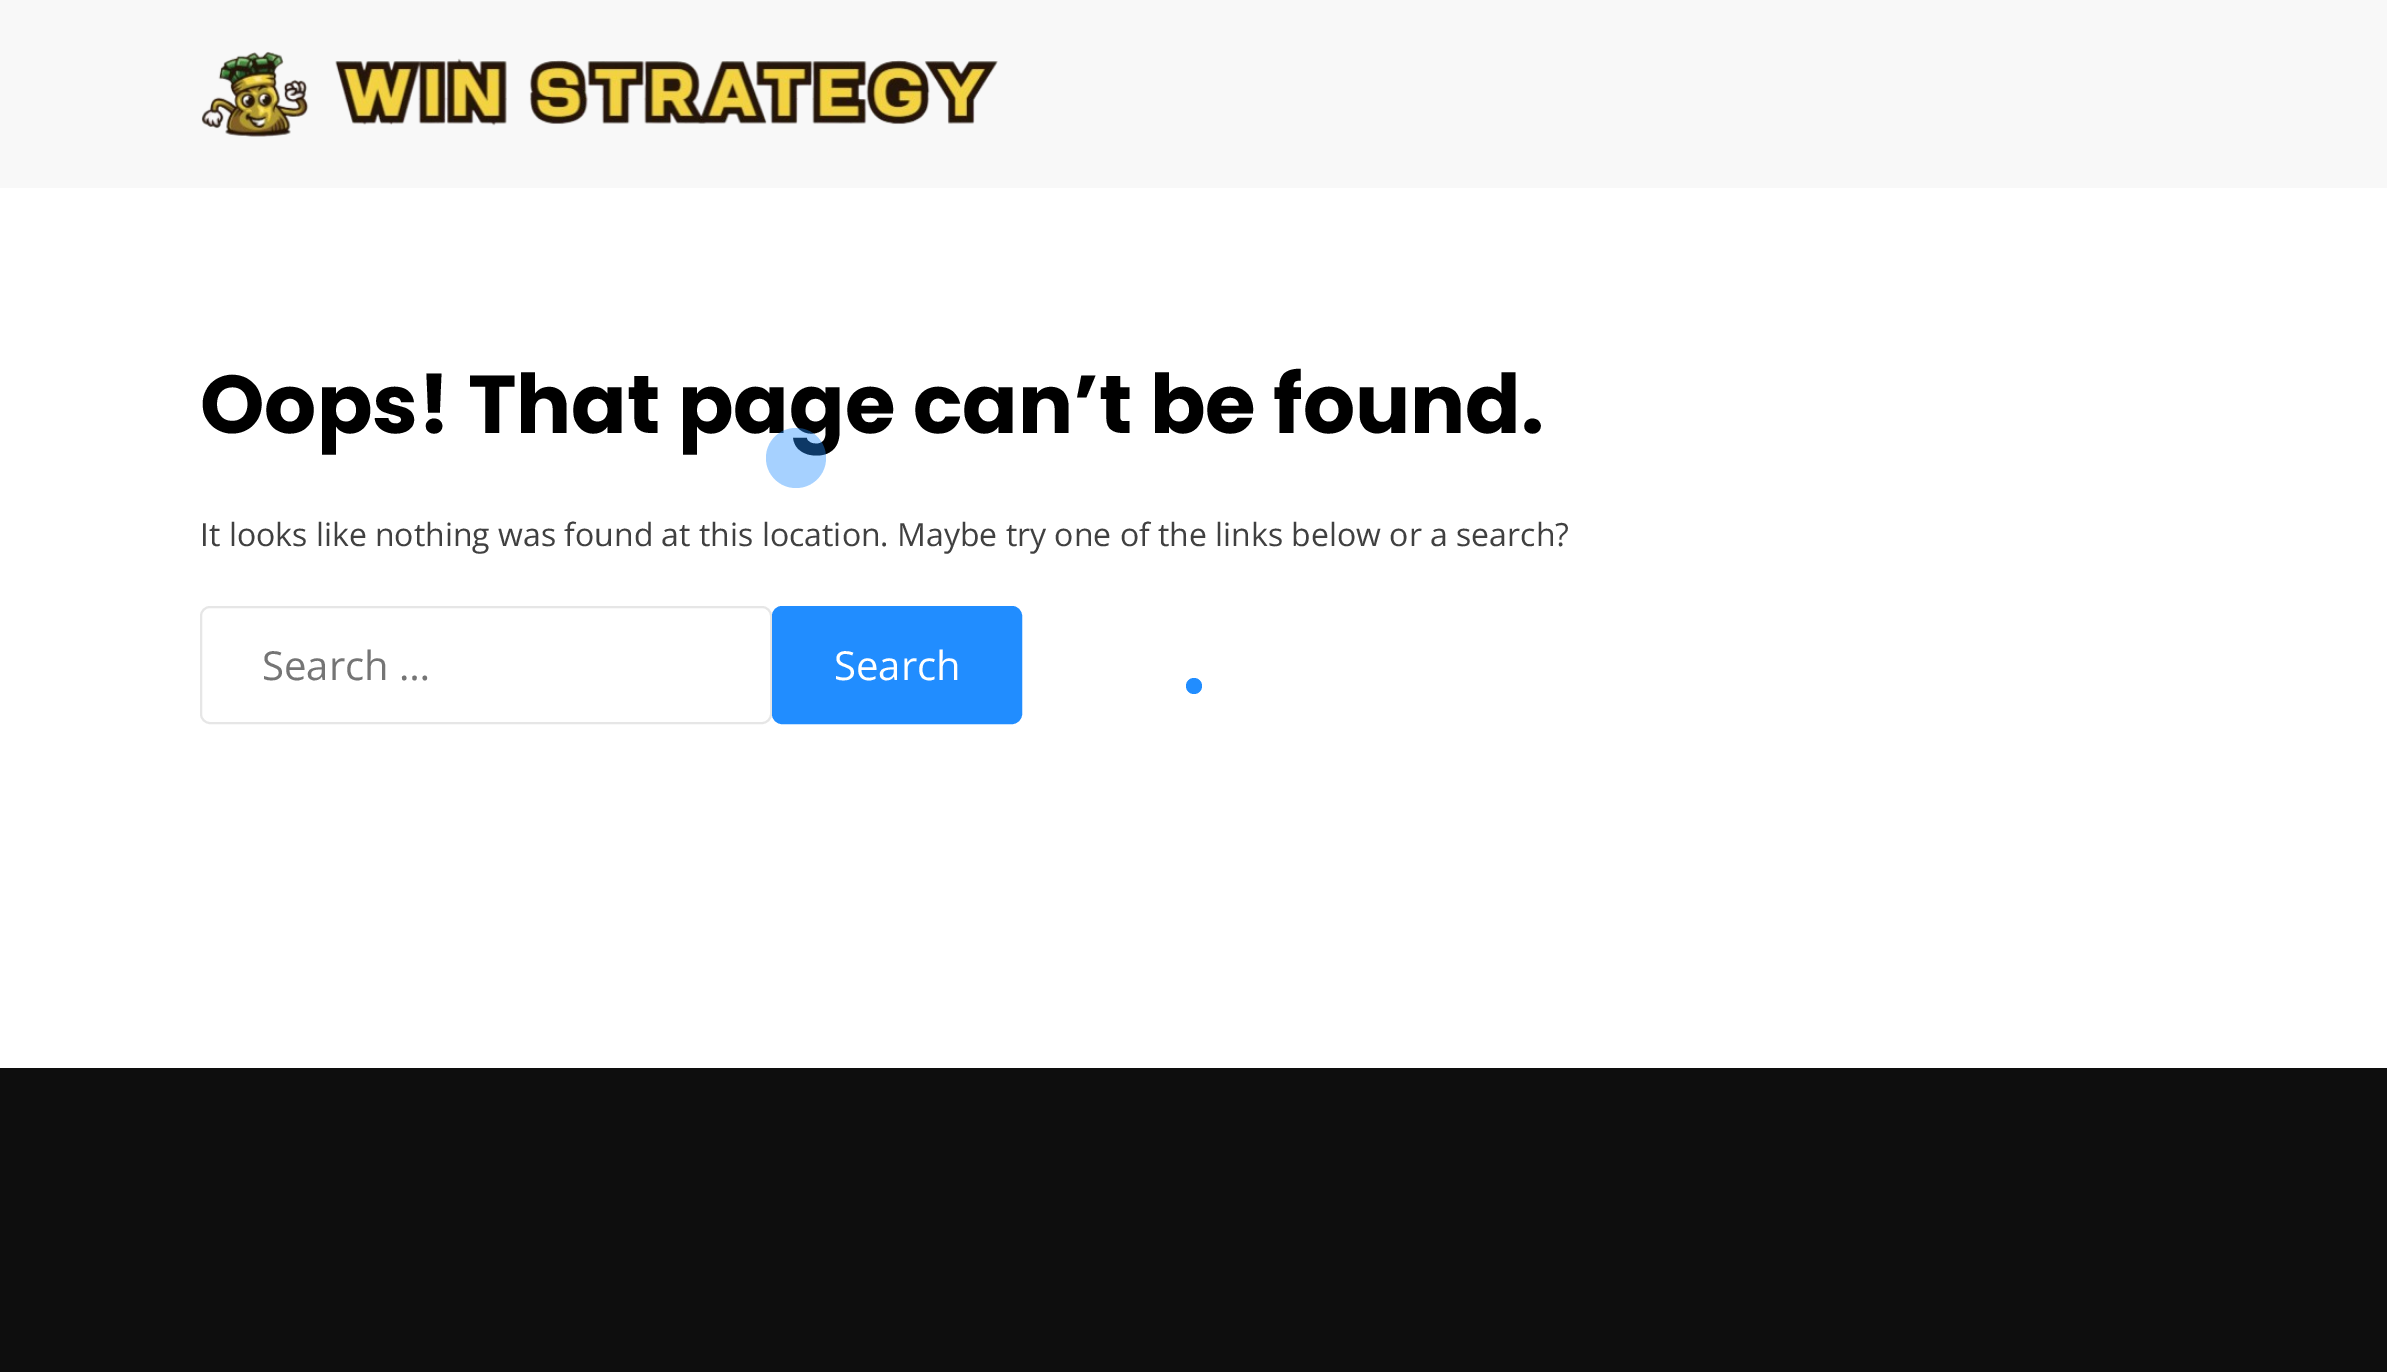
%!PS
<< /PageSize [2387 1372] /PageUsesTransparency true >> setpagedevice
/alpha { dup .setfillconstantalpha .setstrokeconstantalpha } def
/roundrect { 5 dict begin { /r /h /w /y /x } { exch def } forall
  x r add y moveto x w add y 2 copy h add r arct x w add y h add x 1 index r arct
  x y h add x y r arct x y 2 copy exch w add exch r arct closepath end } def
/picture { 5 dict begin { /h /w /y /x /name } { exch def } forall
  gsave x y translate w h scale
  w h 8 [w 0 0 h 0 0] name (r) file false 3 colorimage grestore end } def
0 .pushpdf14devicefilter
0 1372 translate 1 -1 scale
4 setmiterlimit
1 setgray
0 0 2387 1372 rectfill
0.973 setgray
0 0 2387 188 rectfill
(img1.rgb) 201 51 797 86 picture
/Poppins-Bold [82 0 0 -82 0 0] selectfont
0 setgray
200 433 moveto (Oops! That page can’t be found.) show
/OpenSans-Regular [32 0 0 -32 0 0] selectfont
0.251 setgray
200 546 moveto (It looks like nothing was found at this location. Maybe try one of the links below or a search?) show
0.902 setgray
2 setlinewidth
201 607 570 116 9 roundrect stroke
/OpenSans-Regular [40 0 0 -40 0 0] selectfont
0.459 setgray
262 680 moveto (Search …) show
0.129 0.553 1 setrgbcolor
773 607 248 116 9 roundrect gsave fill grestore
stroke
1 setgray
834 680 moveto (Search) show
0.055 setgray
0 1068 2387 304 rectfill
0.4 alpha
0.129 0.553 1 setrgbcolor
newpath 796 458 30 0 360 arc closepath fill
1 alpha
newpath 1194 686 8 0 360 arc closepath fill
.poppdf14devicefilter showpage
